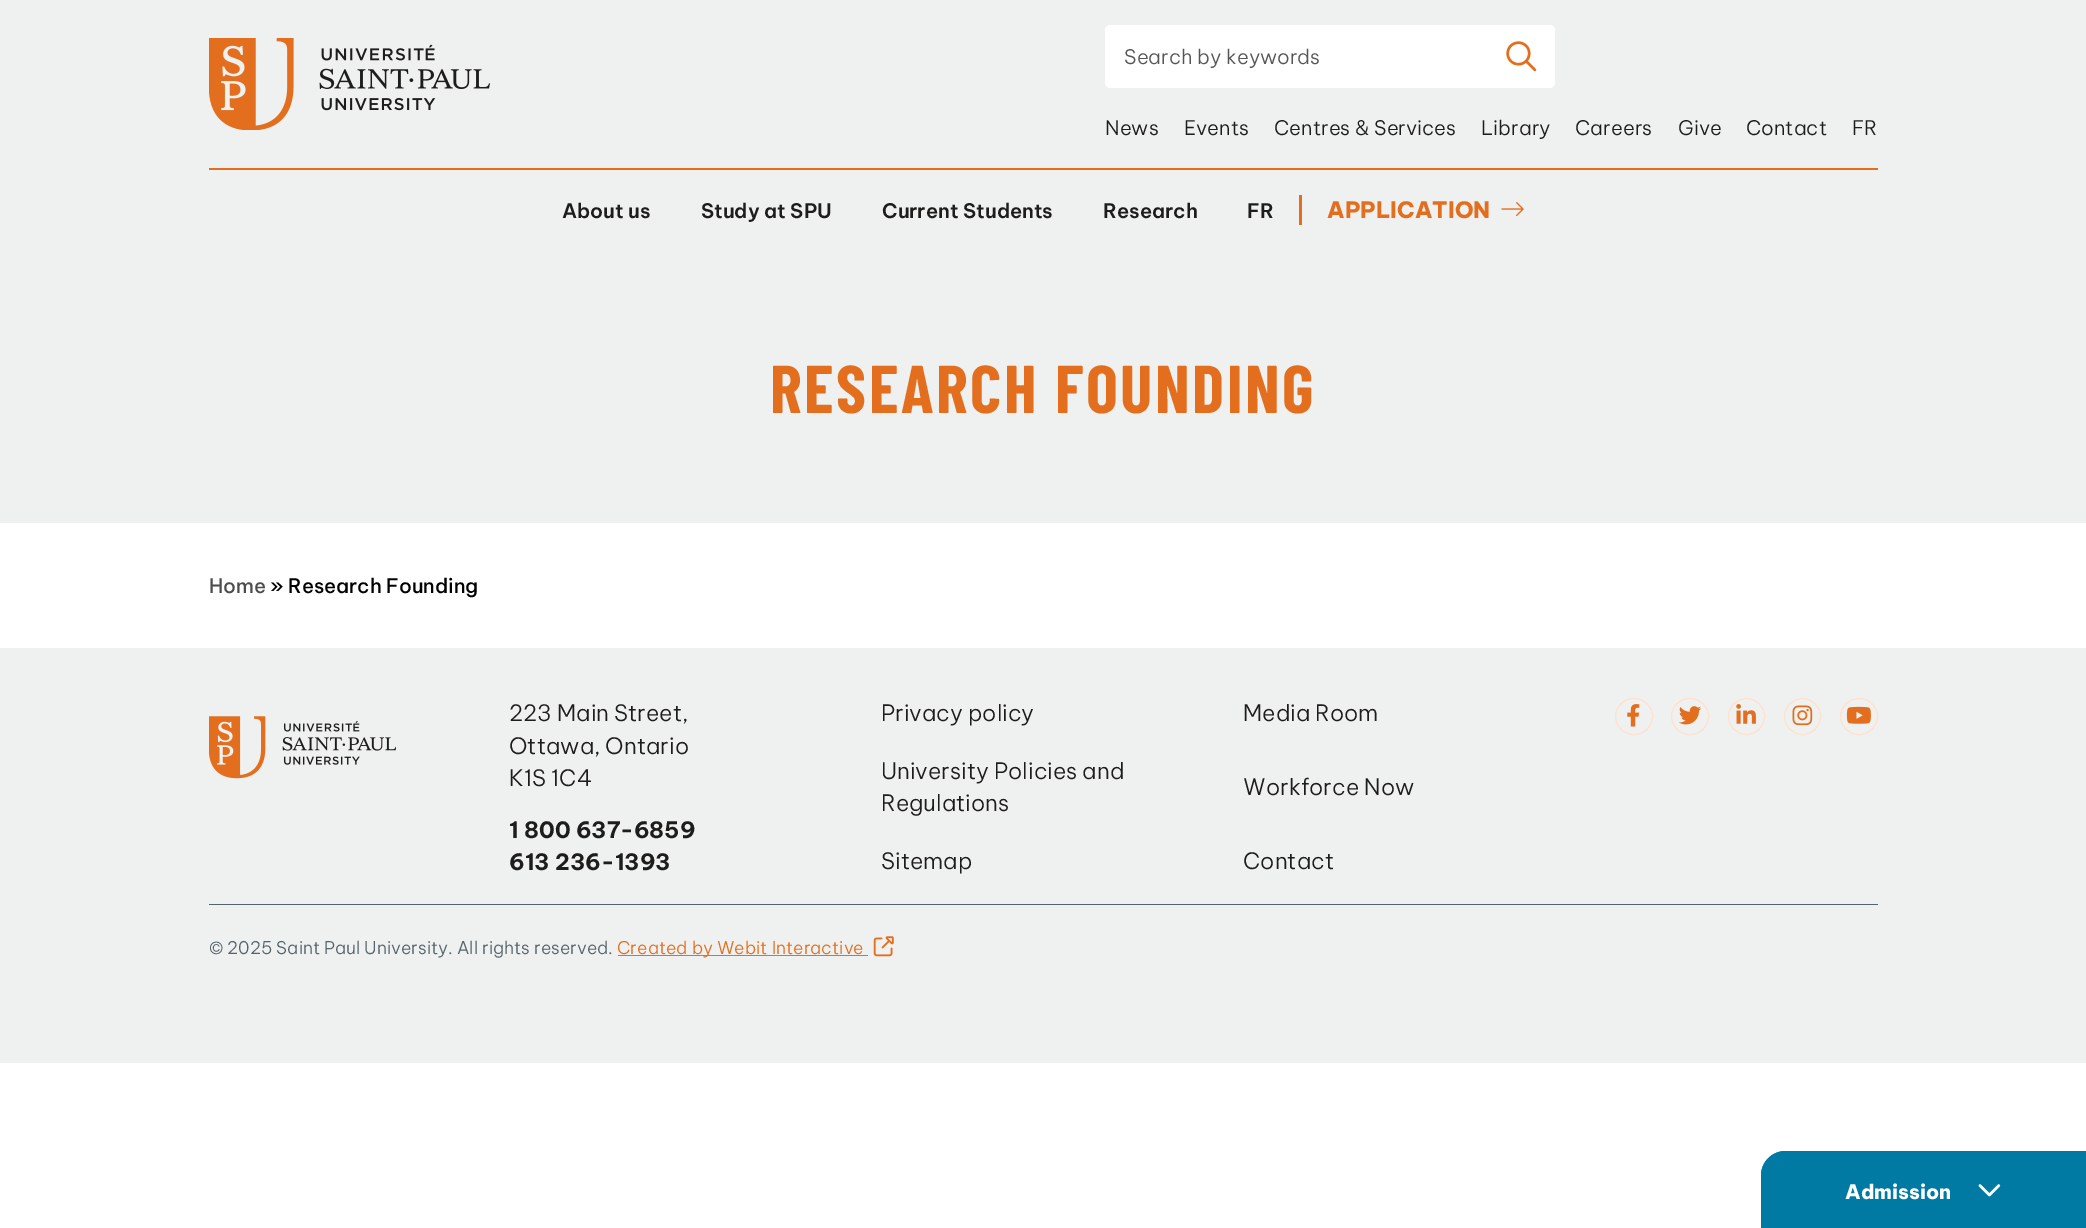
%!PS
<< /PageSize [2086 1228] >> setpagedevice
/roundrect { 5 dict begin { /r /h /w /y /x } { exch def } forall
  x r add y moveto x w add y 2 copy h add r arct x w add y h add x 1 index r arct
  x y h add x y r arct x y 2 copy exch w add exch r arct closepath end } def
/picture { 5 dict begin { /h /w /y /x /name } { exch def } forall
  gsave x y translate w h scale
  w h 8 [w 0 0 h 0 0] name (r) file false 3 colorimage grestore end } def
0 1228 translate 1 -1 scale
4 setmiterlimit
1 setgray
0 0 2086 1228 rectfill
0.937 0.941 0.941 setrgbcolor
0 0 2086 523 rectfill
0.89 0.435 0.118 setrgbcolor
209 168 1669 2 rectfill
(img1.rgb) 209 38 281 92 picture
1 setgray
1105 25 450 63 5 roundrect fill
/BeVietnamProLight-Light [20 0 0 -20 0 0] selectfont
0.337 0.337 0.329 setrgbcolor
1124 64 moveto (Search by keywords) show
(img2.rgb) 1506 41 31 31 picture
0.114 0.114 0.106 setrgbcolor
1105 135 moveto (News) show
1184 135 moveto (Events) show
1274 135 moveto (Centres & Services) show
1481 135 moveto (Library) show
1575 135 moveto (Careers) show
1678 135 moveto (Give) show
1746 135 moveto (Contact) show
1852 135 moveto (FR) show
/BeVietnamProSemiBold-SemiBold [20 0 0 -20 0 0] selectfont
562 218 moveto (About us) show
701 218 moveto (Study at SPU) show
882 218 moveto (Current Students) show
1103 218 moveto (Research) show
1247 218 moveto (FR) show
0.89 0.435 0.118 setrgbcolor
1299 195 3 30 rectfill
/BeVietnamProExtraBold-ExtraBold [22.5 0 0 -22.5 0 0] selectfont
1327 218 moveto (APPLICATION) show
(img3.rgb) 1501 202 23 14 picture
/BarlowCondensed-Bold [67.5 0 0 -67.5 0 0] selectfont
770 413 moveto 2.5 0 (RESEARCH FOUNDING) ashow
/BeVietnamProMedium-Medium [20 0 0 -20 0 0] selectfont
0.302 setgray
209 593 moveto (Home) show
0 setgray
270 593 moveto (» Research Founding) show
0 0.475 0.639 setrgbcolor
newpath 1786 1151 moveto 2086 1151 lineto 2086 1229 lineto 1761 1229 lineto 1761 1176 lineto 1761 1162 1772 1151 1786 1151 curveto closepath fill
newpath 1786 1151 moveto 2086 1151 lineto 2086 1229 lineto 1761 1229 lineto 1761 1176 lineto 1761 1162 1772 1151 1786 1151 curveto closepath 1786 1154 moveto 2084 1154 lineto 2084 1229 lineto 1764 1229 lineto 1764 1176 lineto 1764 1164 1774 1154 1786 1154 curveto closepath eofill
/BeVietnamProExtraBold-ExtraBold [20 0 0 -20 0 0] selectfont
1 setgray
1845 1199 moveto (Admission) show
(img4.rgb) 1978 1184 23 13 picture
0.937 0.941 0.941 setrgbcolor
0 648 2086 415 rectfill
(img5.rgb) 209 716 187 63 picture
/BeVietnamProLight-Light [22.5 0 0 -22.5 0 0] selectfont
0.114 0.114 0.106 setrgbcolor
509 721 moveto (223 Main Street,) show
509 754 moveto (Ottawa, Ontario) show
509 786 moveto (K1S 1C4) show
/BeVietnamPro-Bold [22.5 0 0 -22.5 0 0] selectfont
509 838 moveto (1 800 637-6859) show
509 870 moveto (613 236-1393) show
/BeVietnamProLight-Light [22.5 0 0 -22.5 0 0] selectfont
881 721 moveto (Privacy policy) show
1243 721 moveto (Media Room) show
881 779 moveto (University Policies and) show
881 811 moveto (Regulations) show
1243 795 moveto (Workforce Now) show
881 869 moveto (Sitemap) show
1243 869 moveto (Contact) show
1 0.882 0.8 setrgbcolor
1615.5 698.5 37 36 18 roundrect stroke
(img6.rgb) 1627 704 13 23 picture
1671.5 698.5 37 36 18 roundrect stroke
(img7.rgb) 1679 706 23 19 picture
newpath 1746.5 716.5 18 0 360 arc closepath stroke
(img8.rgb) 1736 704 20 20 picture
newpath 1802.5 716.5 18 0 360 arc closepath stroke
(img9.rgb) 1792 705 21 21 picture
1840.5 698.5 37 36 18 roundrect stroke
(img10.rgb) 1846 706 25 18 picture
0.333 0.392 0.416 setrgbcolor
209 904 1669 1 rectfill
/BeVietnamProLight-Light [17.5 0 0 -17.5 0 0] selectfont
209 954 moveto (© 2025 Saint Paul University. All rights reserved.) show
0.89 0.435 0.118 setrgbcolor
618 955 250 1 rectfill
617 954 moveto (Created by Webit Interactive) show
(img11.rgb) 873 936 21 21 picture
showpage
